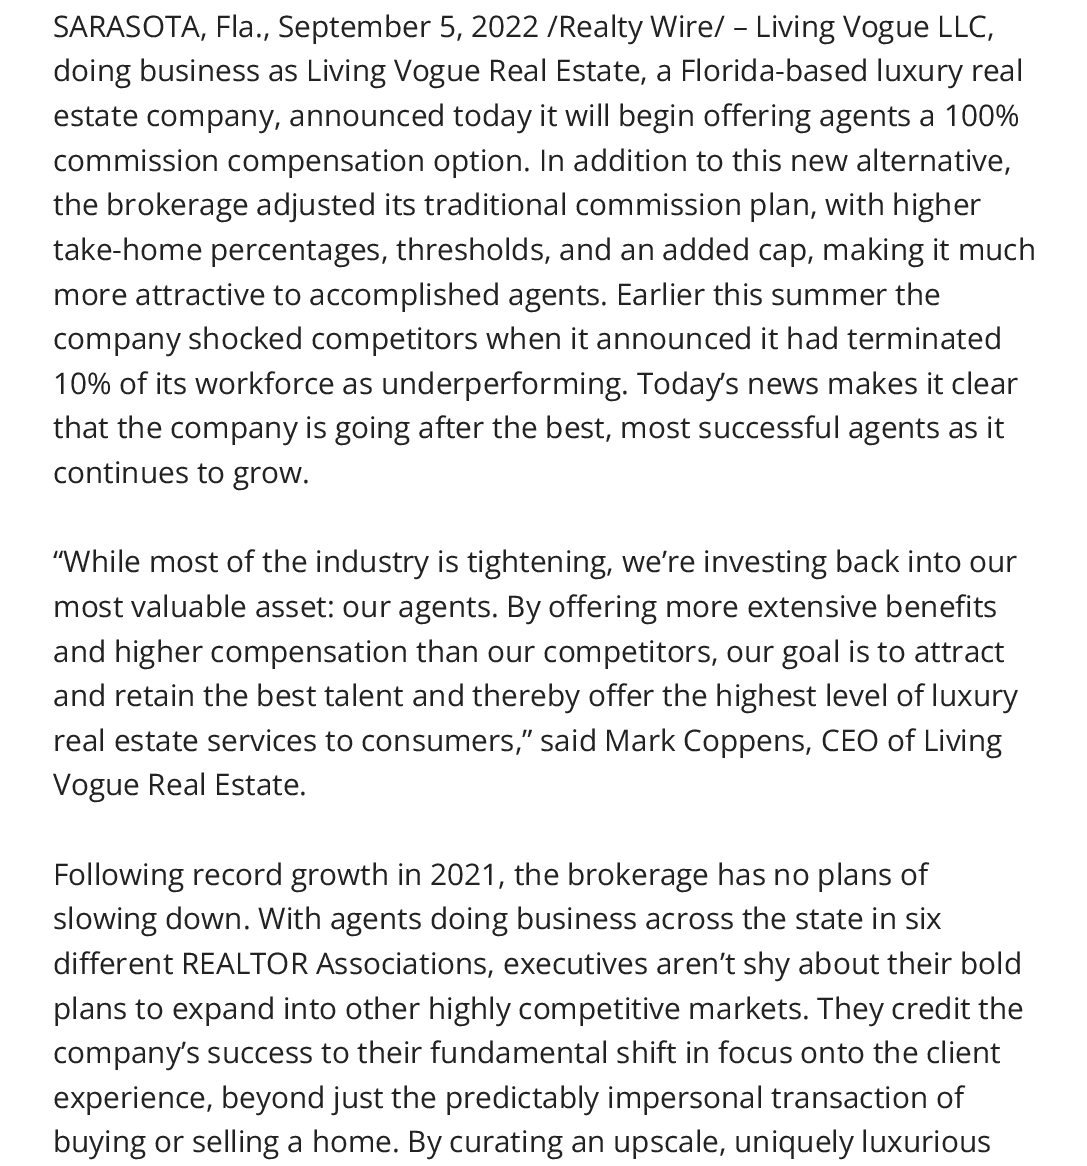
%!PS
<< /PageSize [1087 1166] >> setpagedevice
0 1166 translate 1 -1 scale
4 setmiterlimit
1 setgray
0 0 1087 1166 rectfill
/OpenSans-Regular [29.75 0 0 -29.75 0 0] selectfont
0.133 setgray
53 37 moveto (SARASOTA, Fla., September 5, 2022 /Realty Wire/ – Living Vogue LLC,) show
53 81 moveto (doing business as Living Vogue Real Estate, a Florida-based luxury real) show
53 126 moveto (estate company, announced today it will begin offering agents a 100%) show
53 171 moveto (commission compensation option. In addition to this new alternative,) show
53 215 moveto (the brokerage adjusted its traditional commission plan, with higher) show
53 260 moveto (take-home percentages, thresholds, and an added cap, making it much) show
53 305 moveto (more attractive to accomplished agents. Earlier this summer the) show
53 349 moveto (company shocked competitors when it announced it had terminated) show
53 394 moveto (10% of its workforce as underperforming. Today’s news makes it clear) show
53 438 moveto (that the company is going after the best, most successful agents as it) show
53 483 moveto (continues to grow.) show
53 572 moveto (“While most of the industry is tightening, we’re investing back into our) show
53 617 moveto (most valuable asset: our agents. By offering more extensive benefits) show
53 662 moveto (and higher compensation than our competitors, our goal is to attract) show
53 706 moveto (and retain the best talent and thereby offer the highest level of luxury) show
53 751 moveto (real estate services to consumers,” said Mark Coppens, CEO of Living) show
53 795 moveto (Vogue Real Estate.) show
53 885 moveto (Following record growth in 2021, the brokerage has no plans of) show
53 929 moveto (slowing down. With agents doing business across the state in six) show
53 974 moveto (different REALTOR Associations, executives aren’t shy about their bold) show
53 1019 moveto (plans to expand into other highly competitive markets. They credit the) show
53 1063 moveto (company’s success to their fundamental shift in focus onto the client) show
53 1108 moveto (experience, beyond just the predictably impersonal transaction of) show
53 1152 moveto (buying or selling a home. By curating an upscale, uniquely luxurious) show
showpage
